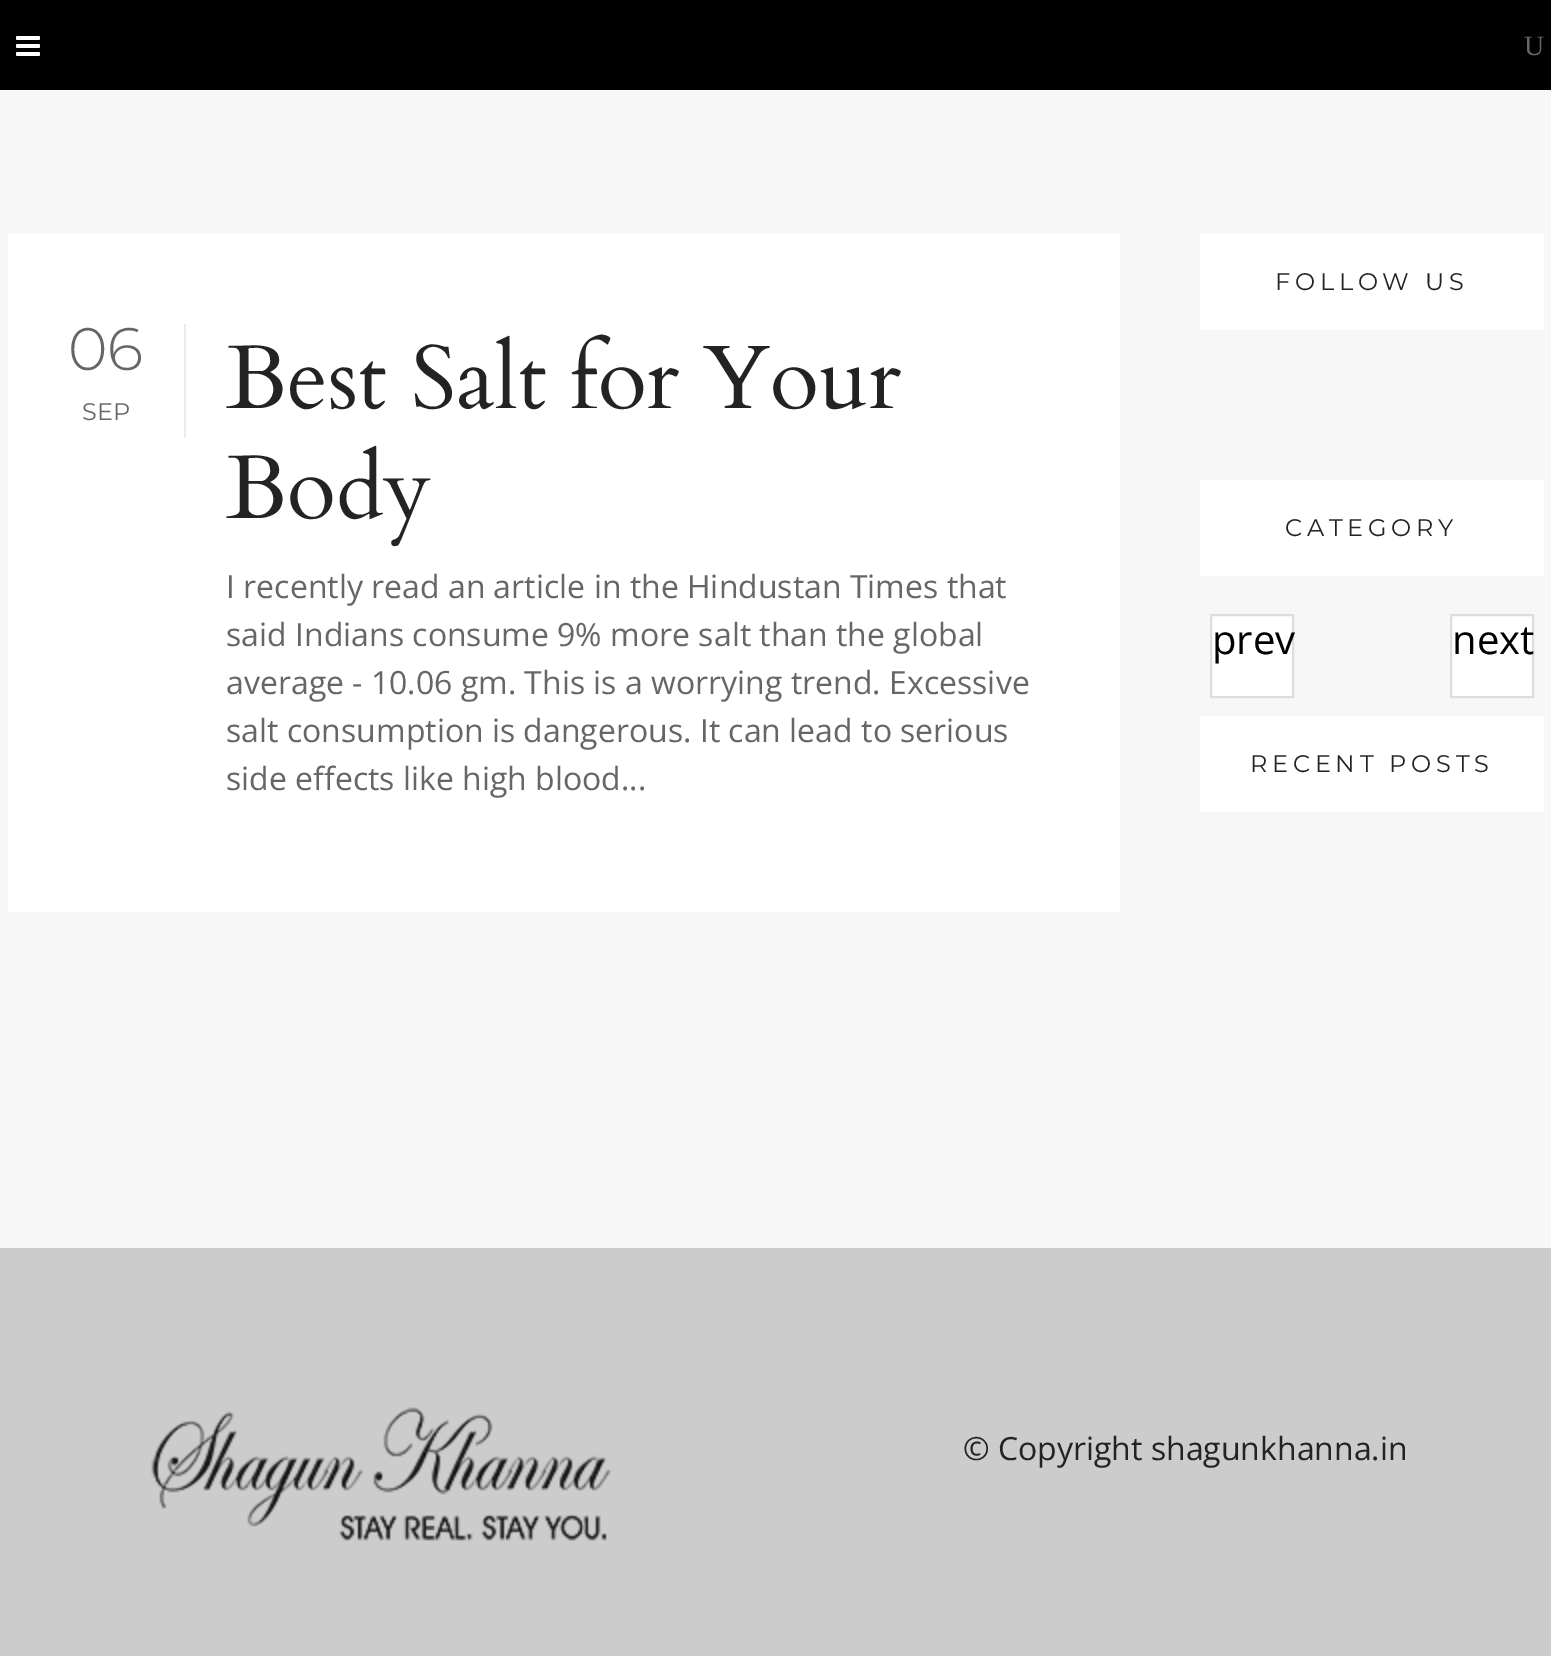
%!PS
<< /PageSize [1551 1656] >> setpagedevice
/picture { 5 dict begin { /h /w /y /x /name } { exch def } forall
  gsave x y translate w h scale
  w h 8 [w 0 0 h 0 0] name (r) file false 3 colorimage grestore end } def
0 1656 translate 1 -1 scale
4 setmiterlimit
0.969 setgray
0 0 1551 1656 rectfill
0 setgray
0 0 1551 90 rectfill
(img1.rgb) 16 36 24 20 picture
/LiberationSerif-Regular [28 0 0 -28 0 0] selectfont
0.4 setgray
1524 55 moveto (U) show
1 setgray
8 234 1112 678 rectfill
0.922 setgray
184 324 2 114 rectfill
/Montserrat-Light [60 0 0 -60 0 0] selectfont
0.4 setgray
68 370 moveto (06) show
/Montserrat-Regular [24 0 0 -24 0 0] selectfont
82 420 moveto (SEP) show
/Cardo-Regular [90 0 0 -90 0 0] selectfont
0.137 setgray
226 408 moveto (Best Salt for Your) show
226 518 moveto (Body) show
/OpenSans-Regular [32 0 0 -32 0 0] selectfont
0.4 setgray
226 598 moveto (I recently read an article in the Hindustan Times that) show
226 646 moveto (said Indians consume 9% more salt than the global) show
226 694 moveto (average - 10.06 gm. This is a worrying trend. Excessive) show
226 742 moveto (salt consumption is dangerous. It can lead to serious) show
226 790 moveto (side effects like high blood...) show
1 setgray
1200 234 344 96 rectfill
/Montserrat-Regular [24 0 0 -24 0 0] selectfont
0.137 setgray
1275 290 moveto 4.75 0 (FOLLOW US) ashow
1 setgray
1200 480 344 96 rectfill
0.137 setgray
1285 536 moveto 4.75 0 (CATEGORY) ashow
1 setgray
newpath 1211 615 moveto 1293 615 lineto 1293 697 lineto 1211 697 lineto closepath gsave fill grestore
0.867 setgray
2 setlinewidth
stroke
/OpenSans-Regular [40 0 0 -40 0 0] selectfont
0 setgray
1212 654 moveto (prev) show
1 setgray
newpath 1451 615 moveto 1533 615 lineto 1533 697 lineto 1451 697 lineto closepath gsave fill grestore
0.867 setgray
stroke
0 setgray
1452 654 moveto (next) show
1 setgray
1200 716 344 96 rectfill
/Montserrat-Regular [24 0 0 -24 0 0] selectfont
0.137 setgray
1250 772 moveto 4.75 0 (RECENT POSTS) ashow
0.8 setgray
0 1248 1551 408 rectfill
(img2.rgb) 151 1407 460 134 picture
/OpenSans-Regular [32 0 0 -32 0 0] selectfont
0.137 setgray
963 1460 moveto (© Copyright shagunkhanna.in) show
showpage
